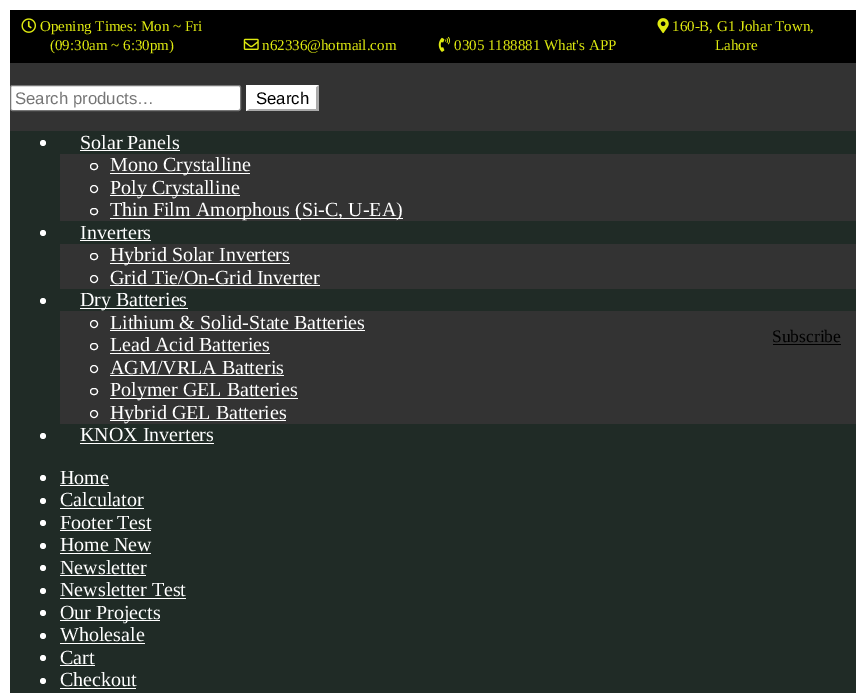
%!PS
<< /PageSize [866 693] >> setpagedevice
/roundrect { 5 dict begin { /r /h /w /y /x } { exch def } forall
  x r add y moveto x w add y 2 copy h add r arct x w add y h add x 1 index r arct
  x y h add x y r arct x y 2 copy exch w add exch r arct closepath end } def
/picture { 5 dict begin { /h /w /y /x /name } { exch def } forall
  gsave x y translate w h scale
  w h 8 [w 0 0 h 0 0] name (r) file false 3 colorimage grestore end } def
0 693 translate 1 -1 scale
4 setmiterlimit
1 setgray
0 0 866 693 rectfill
0 setgray
10 10 846 53 rectfill
(img1.rgb) 21 18 15 15 picture
/LiberationSerif-Regular [15 0 0 -15 0 0] selectfont
0.875 0.918 0.063 setrgbcolor
40 31 moveto (Opening Times: Mon ~ Fri) show
50 50 moveto (\(09:30am ~ 6:30pm\)) show
(img2.rgb) 243 38 16 12 picture
262 50 moveto (n62336@hotmail.com) show
(img3.rgb) 438 36 12 16 picture
454 50 moveto (0305 1188881 What's APP) show
(img4.rgb) 657 18 12 16 picture
672 31 moveto (160-B, G1 Johar Town,) show
715 50 moveto (Lahore) show
0.2 setgray
10 63 846 68 rectfill
1 setgray
10.5 85.5 230 25 2 roundrect gsave fill grestore
0.463 setgray
stroke
/LiberationSans-Regular [16.75 0 0 -16.75 0 0] selectfont
0.459 setgray
15 104 moveto (Search products…) show
1 setgray
246 85 73 26 rectfill
0.667 setgray
newpath 319 85 moveto 319 111 lineto 316 109 lineto 316 87.5 lineto closepath fill
newpath 319 111 moveto 246 111 lineto 249 109 lineto 316 109 lineto closepath fill
1 setgray
newpath 246 111 moveto 246 85 lineto 249 87.5 lineto 249 109 lineto closepath fill
0 setgray
256 104 moveto (Search) show
0.125 0.169 0.149 setrgbcolor
10 131 846 562 rectfill
1 setgray
newpath 43 143 3 0 360 arc closepath fill
/LiberationSerif-Regular [20 0 0 -20 0 0] selectfont
80 149 moveto (Solar Panels) show
80 150 100 1 rectfill
0.2 setgray
60 154 796 67 rectfill
1 setgray
90.5 163.5 7 6 3 roundrect stroke
110 173 140 1 rectfill
110 171 moveto (Mono Crystalline) show
newpath 94 189 3.5 0 360 arc closepath stroke
110 195 130 1 rectfill
110 194 moveto (Poly Crystalline) show
90.5 208.5 7 6 3 roundrect stroke
110 218 293 1 rectfill
110 216 moveto (Thin Film Amorphous \(Si-C, U-EA\)) show
newpath 43 233 3 0 360 arc closepath fill
80 239 moveto (Inverters) show
80 240 71 1 rectfill
0.2 setgray
60 244 796 45 rectfill
1 setgray
90.5 253.5 7 6 3 roundrect stroke
110 263 180 1 rectfill
110 261 moveto (Hybrid Solar Inverters) show
newpath 94 279 3.5 0 360 arc closepath stroke
110 284 moveto (Grid Tie/On-Grid Inverter) show
110 285 210 1 rectfill
newpath 43 301 3 0 360 arc closepath fill
80 308 108 1 rectfill
80 306 moveto (Dry Batteries) show
0.2 setgray
60 311 796 113 rectfill
1 setgray
newpath 94 324 3.5 0 360 arc closepath stroke
110 329 moveto (Lithium & Solid-State Batteries) show
110 330 255 1 rectfill
90.5 343.5 7 6 3 roundrect stroke
110 351 moveto (Lead Acid Batteries) show
110 353 160 1 rectfill
newpath 94 369 3.5 0 360 arc closepath stroke
110 374 moveto (AGM/VRLA Batteris) show
110 375 174 1 rectfill
90.5 388.5 7 6 3 roundrect stroke
110 398 188 1 rectfill
110 396 moveto (Polymer GEL Batteries) show
newpath 94 414 3.5 0 360 arc closepath stroke
110 420 176 1 rectfill
110 419 moveto (Hybrid GEL Batteries) show
newpath 43 436 3 0 360 arc closepath fill
80 441 moveto (KNOX Inverters) show
80 443 134 1 rectfill
newpath 43 478 3 0 360 arc closepath fill
60 484 moveto (Home) show
60 485 49 1 rectfill
newpath 43 501 3 0 360 arc closepath fill
60 506 moveto (Calculator) show
60 508 84 1 rectfill
newpath 43 523 3 0 360 arc closepath fill
60 529 moveto (Footer Test) show
60 530 91 1 rectfill
newpath 43 546 3 0 360 arc closepath fill
60 551 moveto (Home New) show
60 553 91 1 rectfill
newpath 43 568 3 0 360 arc closepath fill
60 574 moveto (Newsletter) show
60 575 86 1 rectfill
newpath 43 591 3 0 360 arc closepath fill
60 596 moveto (Newsletter Test) show
60 598 126 1 rectfill
newpath 43 613 3 0 360 arc closepath fill
60 620 100 1 rectfill
60 619 moveto (Our Projects) show
newpath 43 636 3 0 360 arc closepath fill
60 641 moveto (Wholesale) show
60 643 85 1 rectfill
newpath 43 658 3 0 360 arc closepath fill
60 664 moveto (Cart) show
60 665 35 1 rectfill
newpath 43 681 3 0 360 arc closepath fill
60 686 moveto (Checkout) show
60 688 76 1 rectfill
/LiberationSerif-Regular [17.5 0 0 -17.5 0 0] selectfont
0 setgray
772 342 moveto (Subscribe) show
773 344 68 1 rectfill
showpage
